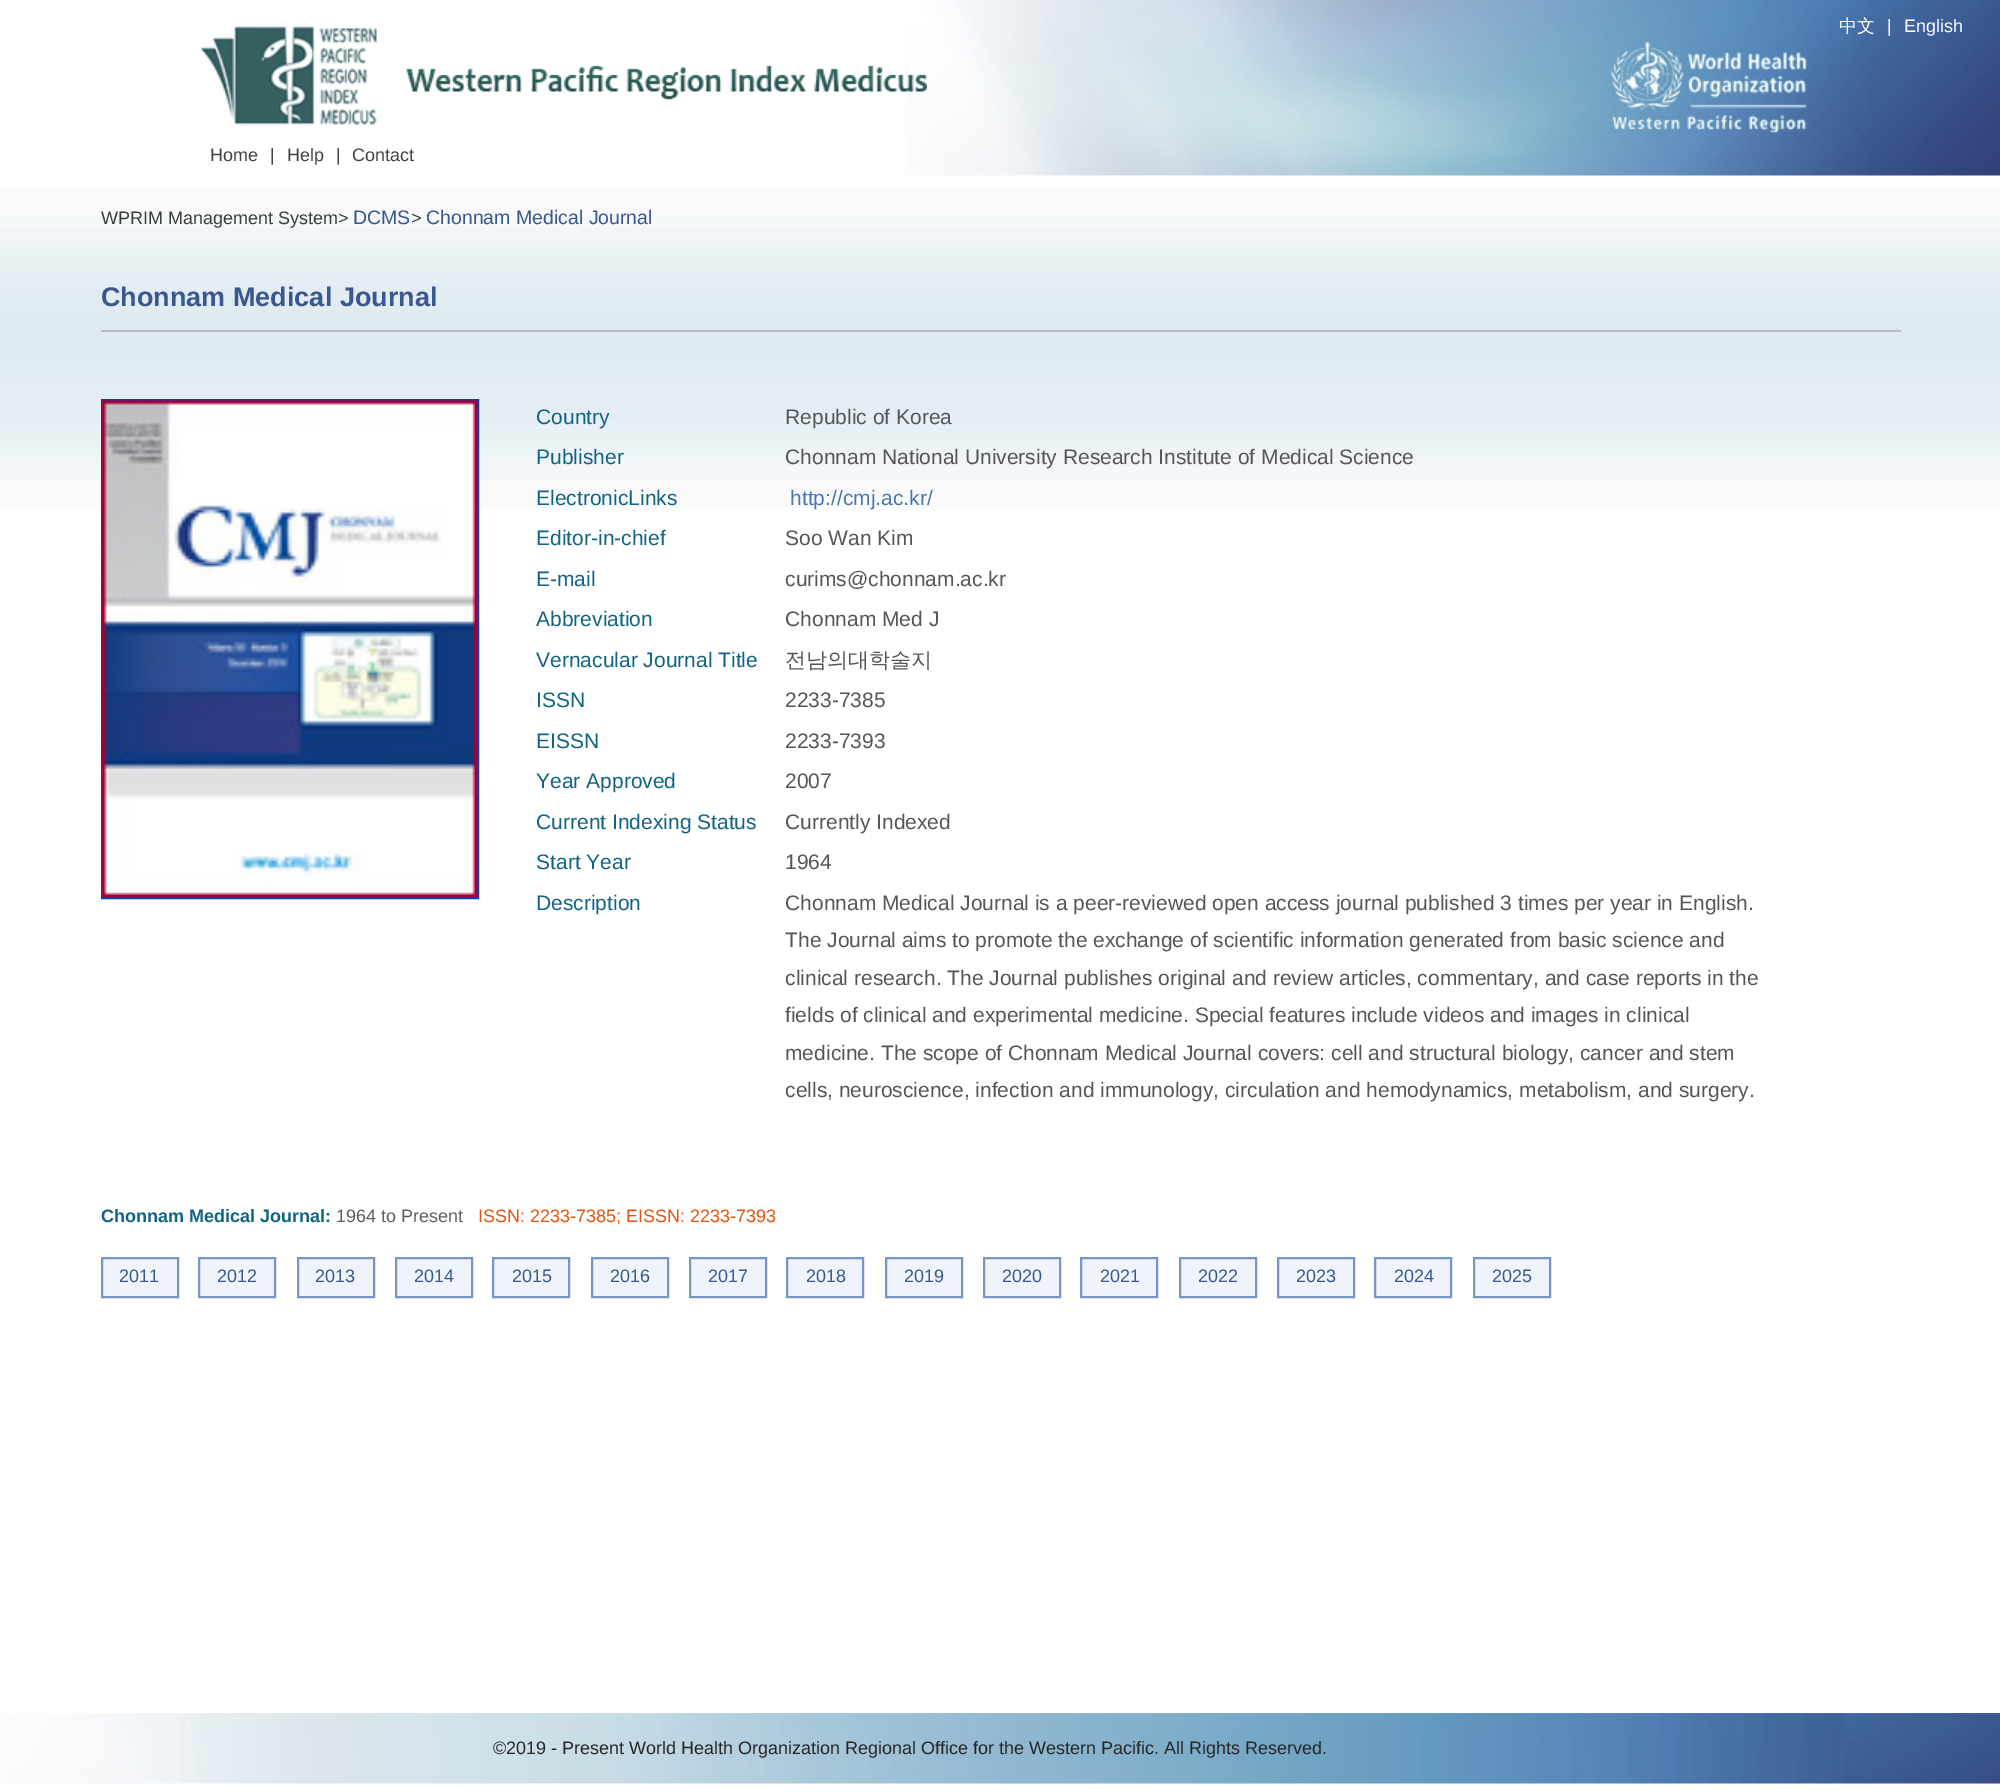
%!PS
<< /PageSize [2000 1792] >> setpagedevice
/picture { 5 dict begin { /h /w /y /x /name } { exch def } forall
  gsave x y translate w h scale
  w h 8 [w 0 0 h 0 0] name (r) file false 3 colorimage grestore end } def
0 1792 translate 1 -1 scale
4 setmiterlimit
1 setgray
0 0 2000 1792 rectfill
(img1.rgb) 905 0 1095 176 picture
/WenQuanYiZenHei-Medium [18 0 0 -18 0 0] selectfont
1839 32 moveto (中文) show
/LiberationSans-Regular [18 0 0 -18 0 0] selectfont
1887 32 moveto (|) show
1904 32 moveto (English) show
(img2.rgb) 1610 41 197 92 picture
(img3.rgb) 200 25 727 100 picture
0.267 setgray
210 161 moveto (Home) show
270 161 moveto (|) show
287 161 moveto (Help) show
336 161 moveto (|) show
352 161 moveto (Contact) show
(img4.rgb) 0 187 2000 324 picture
0.239 setgray
101 224 moveto (WPRIM Management System>) show
/LiberationSans-Regular [19.5 0 0 -19.5 0 0] selectfont
0.227 0.345 0.553 setrgbcolor
353 224 moveto (DCMS) show
/LiberationSans-Regular [18 0 0 -18 0 0] selectfont
0.239 setgray
411 224 moveto (>) show
/LiberationSans-Regular [19.5 0 0 -19.5 0 0] selectfont
0.227 0.345 0.553 setrgbcolor
426 224 moveto (Chonnam Medical Journal) show
0.737 setgray
101 330 1800 2 rectfill
/LiberationSans-Bold [27 0 0 -27 0 0] selectfont
0.227 0.345 0.553 setrgbcolor
101 306 moveto (Chonnam Medical Journal) show
0.059 0.243 0.663 setrgbcolor
2 setlinewidth
102 400 376 498 rectstroke
(img5.rgb) 102 400 375 497 picture
/LiberationSans-Regular [21 0 0 -21 0 0] selectfont
0.067 0.392 0.51 setrgbcolor
536 424 moveto (Country) show
0.337 setgray
785 424 moveto (Republic of Korea) show
0.067 0.392 0.51 setrgbcolor
536 464 moveto (Publisher) show
0.337 setgray
785 464 moveto (Chonnam National University Research Institute of Medical Science) show
0.067 0.392 0.51 setrgbcolor
536 505 moveto (ElectronicLinks) show
0.298 0.467 0.682 setrgbcolor
790 505 moveto (http://cmj.ac.kr/) show
0.067 0.392 0.51 setrgbcolor
536 545 moveto (Editor-in-chief) show
0.337 setgray
785 545 moveto (Soo Wan Kim) show
0.067 0.392 0.51 setrgbcolor
536 586 moveto (E-mail) show
0.337 setgray
785 586 moveto (curims@chonnam.ac.kr) show
0.067 0.392 0.51 setrgbcolor
536 626 moveto (Abbreviation) show
0.337 setgray
785 626 moveto (Chonnam Med J) show
0.067 0.392 0.51 setrgbcolor
536 667 moveto (Vernacular Journal Title) show
/WenQuanYiZenHei-Medium [21 0 0 -21 0 0] selectfont
0.337 setgray
785 667 moveto (전남의대학술지) show
/LiberationSans-Regular [21 0 0 -21 0 0] selectfont
0.067 0.392 0.51 setrgbcolor
536 707 moveto (ISSN) show
0.337 setgray
785 707 moveto (2233-7385) show
0.067 0.392 0.51 setrgbcolor
536 748 moveto (EISSN) show
0.337 setgray
785 748 moveto (2233-7393) show
0.067 0.392 0.51 setrgbcolor
536 788 moveto (Year Approved) show
0.337 setgray
785 788 moveto (2007) show
0.067 0.392 0.51 setrgbcolor
536 829 moveto (Current Indexing Status) show
0.337 setgray
785 829 moveto (Currently Indexed) show
0.067 0.392 0.51 setrgbcolor
536 869 moveto (Start Year) show
0.337 setgray
785 869 moveto (1964) show
0.067 0.392 0.51 setrgbcolor
536 910 moveto (Description) show
0.337 setgray
785 910 moveto (Chonnam Medical Journal is a peer-reviewed open access journal published 3 times per year in English.) show
785 947 moveto (The Journal aims to promote the exchange of scientific information generated from basic science and) show
785 985 moveto (clinical research. The Journal publishes original and review articles, commentary, and case reports in the) show
785 1022 moveto (fields of clinical and experimental medicine. Special features include videos and images in clinical) show
785 1060 moveto (medicine. The scope of Chonnam Medical Journal covers: cell and structural biology, cancer and stem) show
785 1097 moveto (cells, neuroscience, infection and immunology, circulation and hemodynamics, metabolism, and surgery.) show
/LiberationSans-Bold [18 0 0 -18 0 0] selectfont
0.067 0.392 0.51 setrgbcolor
101 1222 moveto (Chonnam Medical Journal:) show
/LiberationSans-Regular [18 0 0 -18 0 0] selectfont
0.38 0.376 0.376 setrgbcolor
336 1222 moveto (1964 to Present) show
0.878 0.337 0.043 setrgbcolor
478 1222 moveto (ISSN: 2233-7385; EISSN: 2233-7393) show
0.937 0.953 0.984 setrgbcolor
newpath 102 1258 moveto 178 1258 lineto 178 1297 lineto 102 1297 lineto closepath gsave fill grestore
0.467 0.584 0.792 setrgbcolor
stroke
0.227 0.345 0.553 setrgbcolor
119 1282 moveto (2011) show
0.937 0.953 0.984 setrgbcolor
newpath 199 1258 moveto 275 1258 lineto 275 1297 lineto 199 1297 lineto closepath gsave fill grestore
0.467 0.584 0.792 setrgbcolor
stroke
0.227 0.345 0.553 setrgbcolor
217 1282 moveto (2012) show
0.937 0.953 0.984 setrgbcolor
newpath 298 1258 moveto 374 1258 lineto 374 1297 lineto 298 1297 lineto closepath gsave fill grestore
0.467 0.584 0.792 setrgbcolor
stroke
0.227 0.345 0.553 setrgbcolor
315 1282 moveto (2013) show
0.937 0.953 0.984 setrgbcolor
newpath 396 1258 moveto 472 1258 lineto 472 1297 lineto 396 1297 lineto closepath gsave fill grestore
0.467 0.584 0.792 setrgbcolor
stroke
0.227 0.345 0.553 setrgbcolor
414 1282 moveto (2014) show
0.937 0.953 0.984 setrgbcolor
newpath 493 1258 moveto 569 1258 lineto 569 1297 lineto 493 1297 lineto closepath gsave fill grestore
0.467 0.584 0.792 setrgbcolor
stroke
0.227 0.345 0.553 setrgbcolor
512 1282 moveto (2015) show
0.937 0.953 0.984 setrgbcolor
newpath 592 1258 moveto 668 1258 lineto 668 1297 lineto 592 1297 lineto closepath gsave fill grestore
0.467 0.584 0.792 setrgbcolor
stroke
0.227 0.345 0.553 setrgbcolor
610 1282 moveto (2016) show
0.937 0.953 0.984 setrgbcolor
newpath 690 1258 moveto 766 1258 lineto 766 1297 lineto 690 1297 lineto closepath gsave fill grestore
0.467 0.584 0.792 setrgbcolor
stroke
0.227 0.345 0.553 setrgbcolor
708 1282 moveto (2017) show
0.937 0.953 0.984 setrgbcolor
newpath 787 1258 moveto 863 1258 lineto 863 1297 lineto 787 1297 lineto closepath gsave fill grestore
0.467 0.584 0.792 setrgbcolor
stroke
0.227 0.345 0.553 setrgbcolor
806 1282 moveto (2018) show
0.937 0.953 0.984 setrgbcolor
newpath 886 1258 moveto 962 1258 lineto 962 1297 lineto 886 1297 lineto closepath gsave fill grestore
0.467 0.584 0.792 setrgbcolor
stroke
0.227 0.345 0.553 setrgbcolor
904 1282 moveto (2019) show
0.937 0.953 0.984 setrgbcolor
newpath 984 1258 moveto 1060 1258 lineto 1060 1297 lineto 984 1297 lineto closepath gsave fill grestore
0.467 0.584 0.792 setrgbcolor
stroke
0.227 0.345 0.553 setrgbcolor
1002 1282 moveto (2020) show
0.937 0.953 0.984 setrgbcolor
newpath 1081 1258 moveto 1157 1258 lineto 1157 1297 lineto 1081 1297 lineto closepath gsave fill grestore
0.467 0.584 0.792 setrgbcolor
stroke
0.227 0.345 0.553 setrgbcolor
1100 1282 moveto (2021) show
0.937 0.953 0.984 setrgbcolor
newpath 1180 1258 moveto 1256 1258 lineto 1256 1297 lineto 1180 1297 lineto closepath gsave fill grestore
0.467 0.584 0.792 setrgbcolor
stroke
0.227 0.345 0.553 setrgbcolor
1198 1282 moveto (2022) show
0.937 0.953 0.984 setrgbcolor
newpath 1278 1258 moveto 1354 1258 lineto 1354 1297 lineto 1278 1297 lineto closepath gsave fill grestore
0.467 0.584 0.792 setrgbcolor
stroke
0.227 0.345 0.553 setrgbcolor
1296 1282 moveto (2023) show
0.937 0.953 0.984 setrgbcolor
newpath 1375 1258 moveto 1451 1258 lineto 1451 1297 lineto 1375 1297 lineto closepath gsave fill grestore
0.467 0.584 0.792 setrgbcolor
stroke
0.227 0.345 0.553 setrgbcolor
1394 1282 moveto (2024) show
0.937 0.953 0.984 setrgbcolor
newpath 1474 1258 moveto 1550 1258 lineto 1550 1297 lineto 1474 1297 lineto closepath gsave fill grestore
0.467 0.584 0.792 setrgbcolor
stroke
0.227 0.345 0.553 setrgbcolor
1492 1282 moveto (2025) show
(img6.rgb) 0 1713 2000 71 picture
0.145 0.153 0.157 setrgbcolor
493 1754 moveto (©2019 - Present World Health Organization Regional Office for the Western Pacific. All Rights Reserved.) show
showpage
